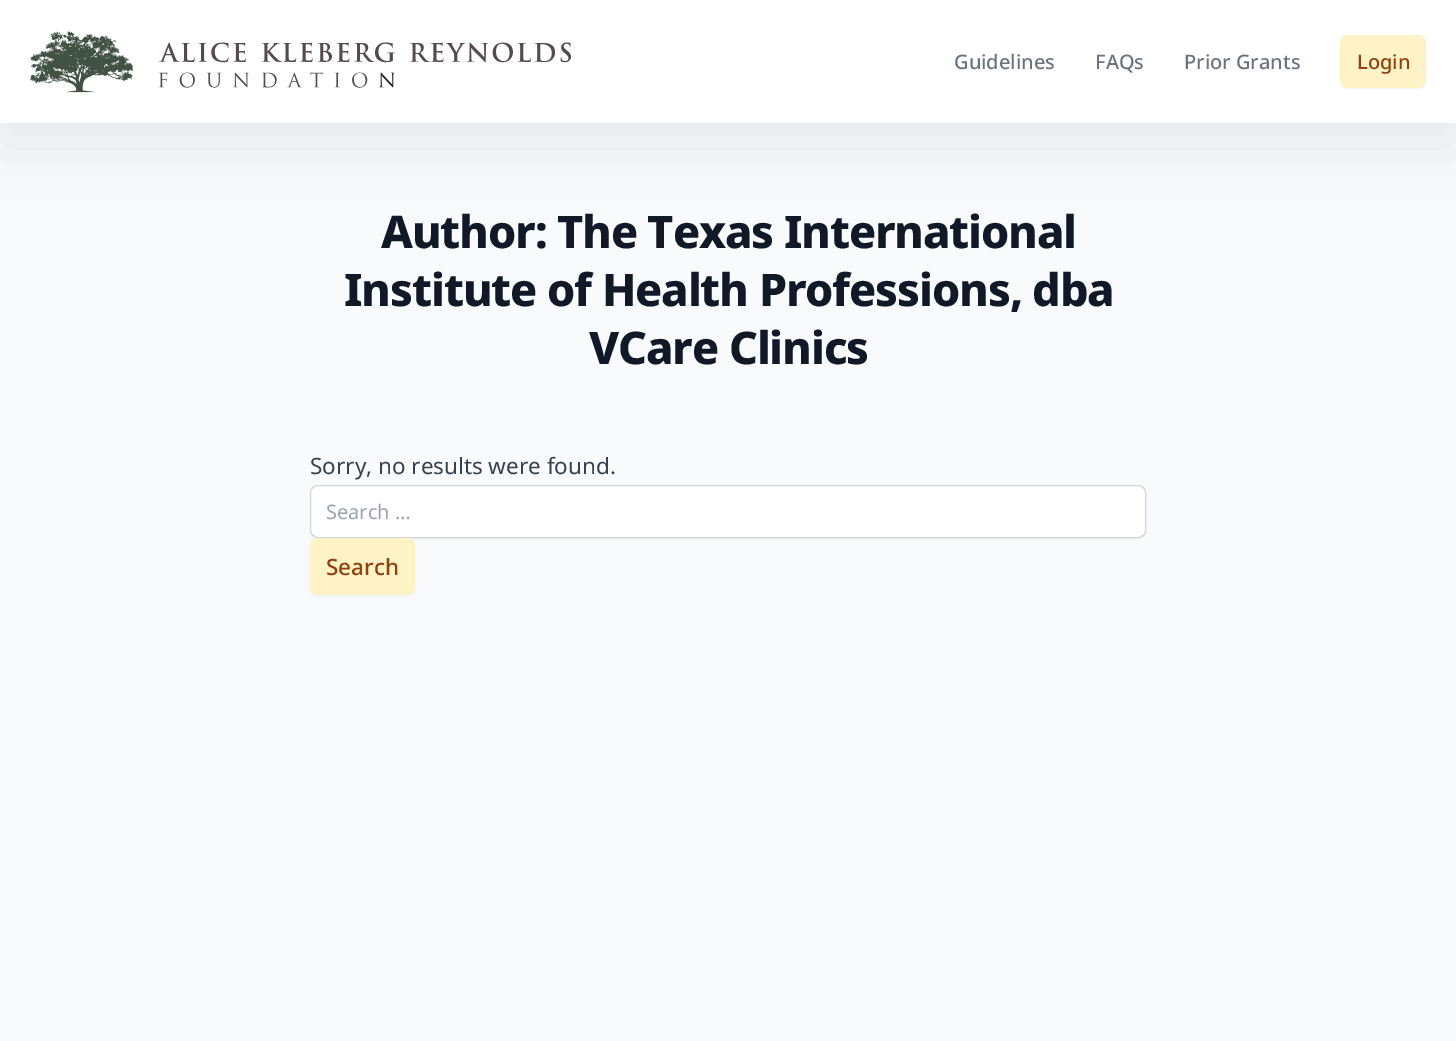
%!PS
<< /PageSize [1456 1041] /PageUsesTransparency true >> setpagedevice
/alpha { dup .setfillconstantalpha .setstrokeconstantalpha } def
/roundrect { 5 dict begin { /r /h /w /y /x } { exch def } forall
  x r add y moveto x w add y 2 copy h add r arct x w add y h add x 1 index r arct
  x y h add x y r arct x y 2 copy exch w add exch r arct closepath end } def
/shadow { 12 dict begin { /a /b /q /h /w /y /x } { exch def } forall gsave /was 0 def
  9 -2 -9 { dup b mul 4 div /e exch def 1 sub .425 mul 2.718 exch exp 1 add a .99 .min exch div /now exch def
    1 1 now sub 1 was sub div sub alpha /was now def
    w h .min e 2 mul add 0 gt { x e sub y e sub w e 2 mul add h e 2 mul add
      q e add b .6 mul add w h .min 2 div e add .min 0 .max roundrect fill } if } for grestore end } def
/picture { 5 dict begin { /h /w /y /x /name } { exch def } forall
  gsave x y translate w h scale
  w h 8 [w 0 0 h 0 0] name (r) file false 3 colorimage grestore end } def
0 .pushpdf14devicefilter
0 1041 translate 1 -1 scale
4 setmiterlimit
0.976 0.98 0.984 setrgbcolor
0 0 1456 1041 rectfill
0.122 0.125 0.259 setrgbcolor
0 20 1456 123 0 30 0.08 shadow
1 setgray
0 0 1456 123 rectfill
(img1.rgb) 30 31 541 62 picture
/NotoSans-Medium [20 0 0 -20 0 0] selectfont
0.42 0.447 0.502 setrgbcolor
954 69 moveto (Guidelines) show
1095 69 moveto (FAQs) show
1184 69 moveto (Prior Grants) show
0 setgray
1340 36 86 53 8 1 0.05 shadow
0.996 0.953 0.78 setrgbcolor
1340 35 86 53 8 roundrect fill
0.573 0.251 0.055 setrgbcolor
1357 69 moveto (Login) show
/NotoSans-ExtraBold [45 0 0 -45 0 0] selectfont
0.067 0.094 0.153 setrgbcolor
381 248 moveto -1.1 0 (Author: The Texas International) ashow
344 306 moveto -1.1 0 (Institute of Health Professions, dba) ashow
589 364 moveto -1.1 0 (VCare Clinics) ashow
/NotoSans-Regular [22.5 0 0 -22.5 0 0] selectfont
0.216 0.255 0.318 setrgbcolor
310 474 moveto (Sorry, no results were found.) show
0 setgray
310 486 836 53 8 1 0.05 shadow
1 setgray
310.5 485.5 835 52 7.5 roundrect gsave fill grestore
0.82 0.835 0.859 setrgbcolor
stroke
/NotoSans-Regular [20 0 0 -20 0 0] selectfont
0.612 0.639 0.686 setrgbcolor
326 519 moveto (Search …) show
0 setgray
310 539 105 57 8 1 0.05 shadow
0.996 0.953 0.78 setrgbcolor
310 538 105 57 8 roundrect fill
/NotoSans-Medium [22.5 0 0 -22.5 0 0] selectfont
0.573 0.251 0.055 setrgbcolor
326 575 moveto (Search) show
.poppdf14devicefilter showpage
